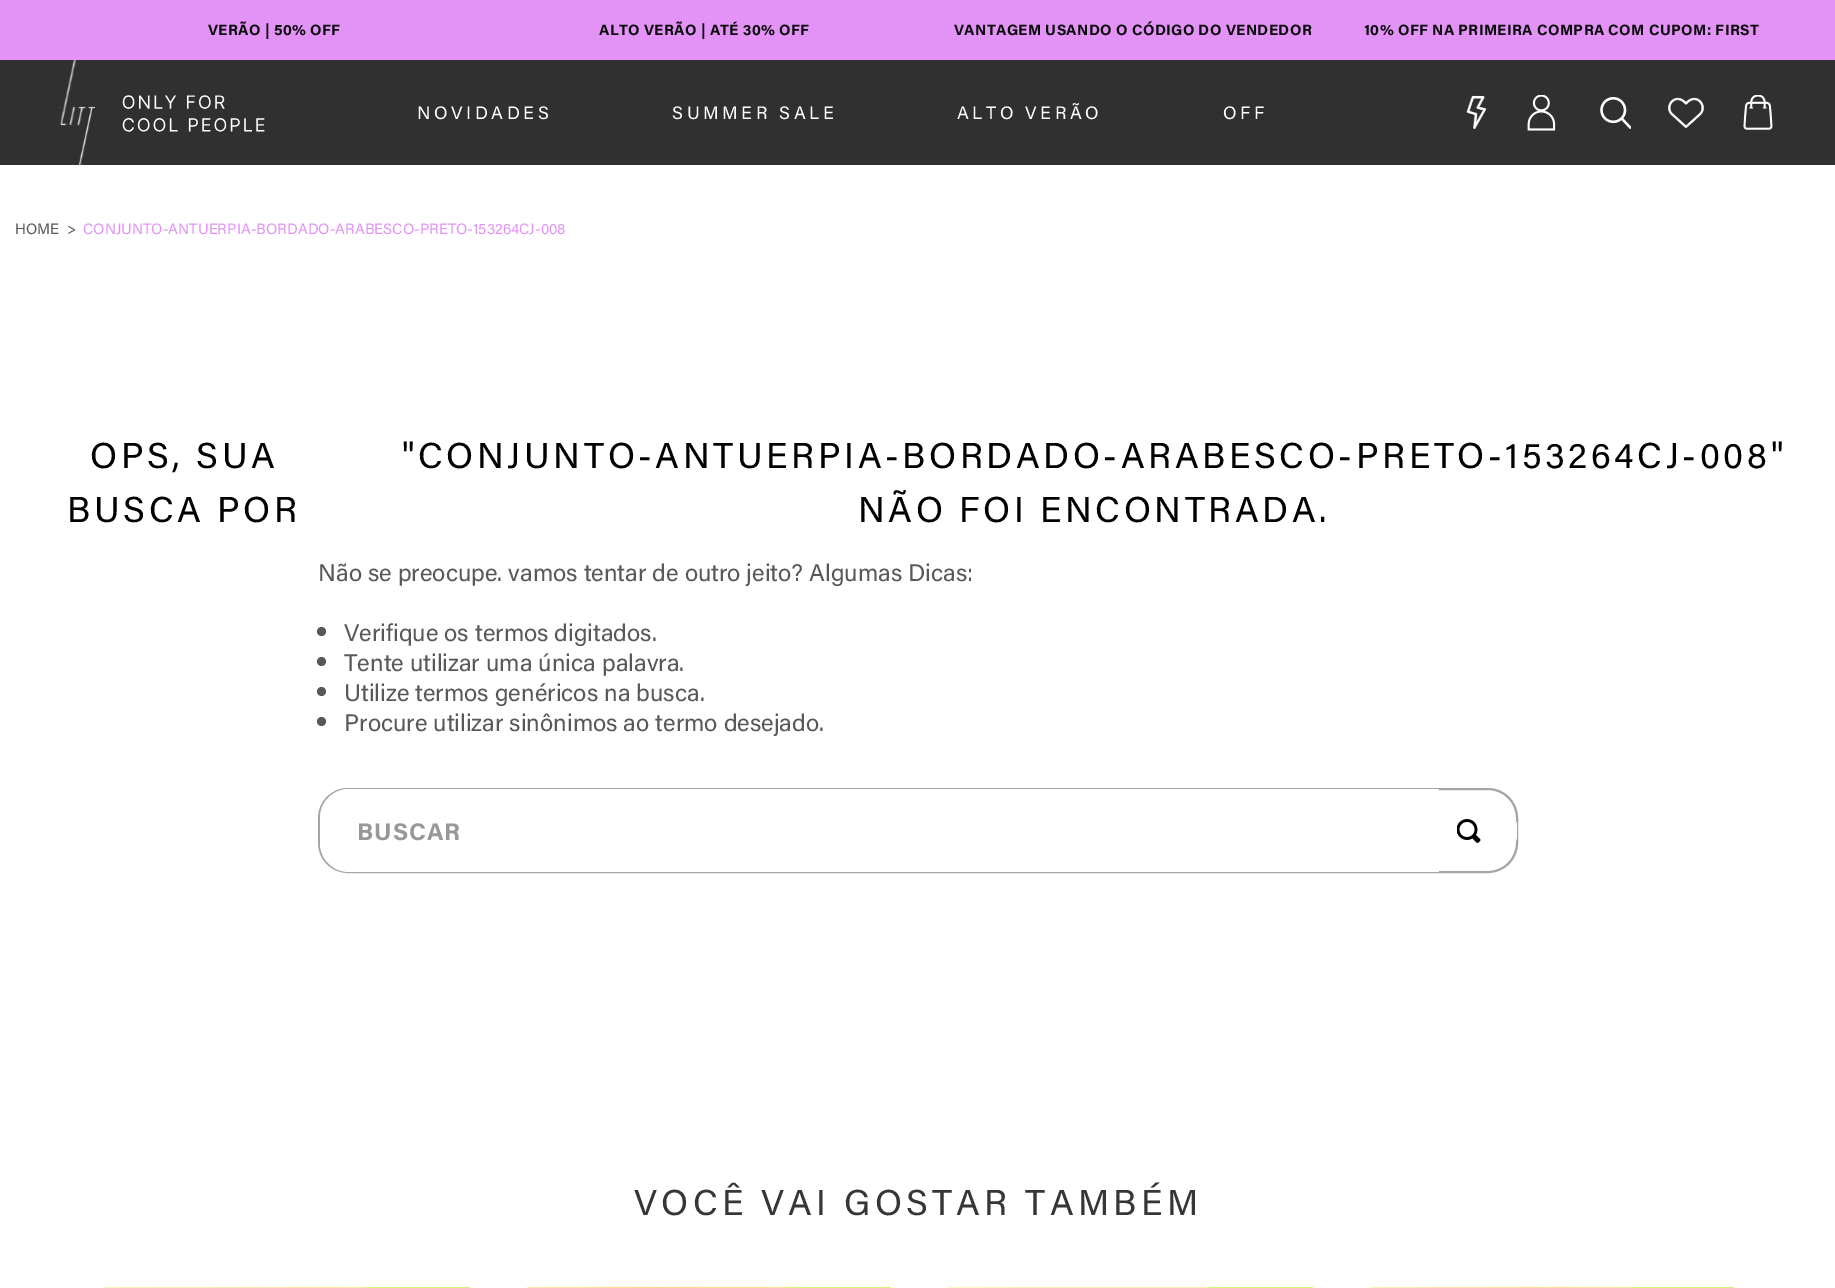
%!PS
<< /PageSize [1835 1288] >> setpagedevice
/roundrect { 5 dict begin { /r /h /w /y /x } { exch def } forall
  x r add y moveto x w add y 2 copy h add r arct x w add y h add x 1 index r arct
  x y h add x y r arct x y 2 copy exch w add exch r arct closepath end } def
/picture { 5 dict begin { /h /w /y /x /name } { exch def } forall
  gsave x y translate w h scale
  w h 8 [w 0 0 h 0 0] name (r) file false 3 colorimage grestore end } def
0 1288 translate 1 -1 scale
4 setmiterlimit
1 setgray
0 0 1835 1288 rectfill
0.188 setgray
0 60 1835 105 rectfill
0.89 0.576 0.965 setrgbcolor
0 0 1835 60 rectfill
/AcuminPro-Bold [15 0 0 -15 0 0] selectfont
0.039 0.039 0.043 setrgbcolor
208 35 moveto 0.35 0 (VERÃO | 50% OFF) ashow
599 35 moveto 0.35 0 (ALTO VERÃO | ATÉ 30% OFF) ashow
954 35 moveto 0.35 0 (VANTAGEM USANDO O CÓDIGO DO VENDEDOR) ashow
1364 35 moveto 0.35 0 (10% OFF NA PRIMEIRA COMPRA COM CUPOM: FIRST) ashow
(img1.rgb) 60 60 205 105 picture
/AcuminPro-Regular [18 0 0 -18 0 0] selectfont
1 setgray
417 119 moveto 3.6 0 (NOVIDADES) ashow
672 119 moveto 3.6 0 (SUMMER SALE) ashow
957 119 moveto 3.6 0 (ALTO VERÃO) ashow
1223 119 moveto 3.6 0 (OFF) ashow
(img2.rgb) 1466 95 21 34 picture
(img3.rgb) 1527 95 29 36 picture
(img4.rgb) 1600 97 31 32 picture
(img5.rgb) 1668 97 36 31 picture
(img6.rgb) 1743 95 30 35 picture
/AcuminPro-Regular [15 0 0 -15 0 0] selectfont
0.345 setgray
15 234 moveto (HOME) show
67 234 moveto (>) show
0.89 0.576 0.965 setrgbcolor
83 234 moveto (CONJUNTO-ANTUERPIA-BORDADO-ARABESCO-PRETO-153264CJ-008) show
/AcuminPro-Regular [36 0 0 -36 0 0] selectfont
0 setgray
90 468 moveto 3.6 0 (OPS, SUA) ashow
67 522 moveto 3.6 0 (BUSCA POR) ashow
402 468 moveto 3.6 0 ("CONJUNTO-ANTUERPIA-BORDADO-ARABESCO-PRETO-153264CJ-008") ashow
858 522 moveto 3.6 0 (NÃO FOI ENCONTRADA.) ashow
/AcuminPro-Regular [24 0 0 -24 0 0] selectfont
0.345 setgray
318 581 moveto (Não se preocupe. vamos tentar de outro jeito? Algumas Dicas:) show
newpath 321.5 631.5 4.5 0 360 arc closepath fill
344 641 moveto (Verifique os termos digitados.) show
newpath 321.5 661.5 4.5 0 360 arc closepath fill
344 671 moveto (Tente utilizar uma única palavra.) show
newpath 321.5 691.5 4.5 0 360 arc closepath fill
344 701 moveto (Utilize termos genéricos na busca.) show
newpath 321.5 721.5 4.5 0 360 arc closepath fill
344 731 moveto (Procure utilizar sinônimos ao termo desejado.) show
0.647 setgray
2 setlinewidth
319 789 1198 83 29 roundrect stroke
1 setgray
newpath 349 789 moveto 1437.5 789 lineto 1438.5 789 1439 789.5 1439 790.5 curveto 1439 870.5 lineto 1439 871.5 1438.5 872 1437.5 872 curveto 349 872 lineto 333 872 320 859 320 843 curveto 320 818 lineto 320 802 333 789 349 789 curveto closepath fill
/AcuminPro-Bold [24 0 0 -24 0 0] selectfont
0.592 0.596 0.6 setrgbcolor
357 840 moveto 1 0 (BUSCAR) ashow
1 setgray
newpath 1439 819 moveto 1511 819 lineto 1514.5 819 1517 821.5 1517 825 curveto 1517 837 lineto 1517 840.5 1514.5 843 1511 843 curveto 1439 843 lineto closepath fill
(img7.rgb) 1457 819 24 24 picture
/AcuminPro-Regular [36 0 0 -36 0 0] selectfont
0.212 setgray
634 1215 moveto 4.3 0 (VOCÊ VAI GOSTAR TAMBÉM) ashow
(img8.rgb) 105 1287 261 1 picture
gsave
75 1287 422 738 rectclip
0.827 0.961 0.471 setrgbcolor
newpath 470 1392 moveto 364 1286 lineto 470 1286 lineto closepath fill
grestore
(img9.rgb) 527 1287 260 1 picture
gsave
497 1287 421 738 rectclip
0.827 0.961 0.471 setrgbcolor
newpath 891 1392 moveto 785 1286 lineto 891 1286 lineto closepath fill
grestore
(img10.rgb) 948 1287 261 1 picture
gsave
918 1287 422 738 rectclip
0.827 0.961 0.471 setrgbcolor
newpath 1313 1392 moveto 1207 1286 lineto 1313 1286 lineto closepath fill
grestore
(img11.rgb) 1370 1287 260 1 picture
gsave
1340 1287 421 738 rectclip
0.827 0.961 0.471 setrgbcolor
newpath 1734 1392 moveto 1628 1286 lineto 1734 1286 lineto closepath fill
grestore
showpage
